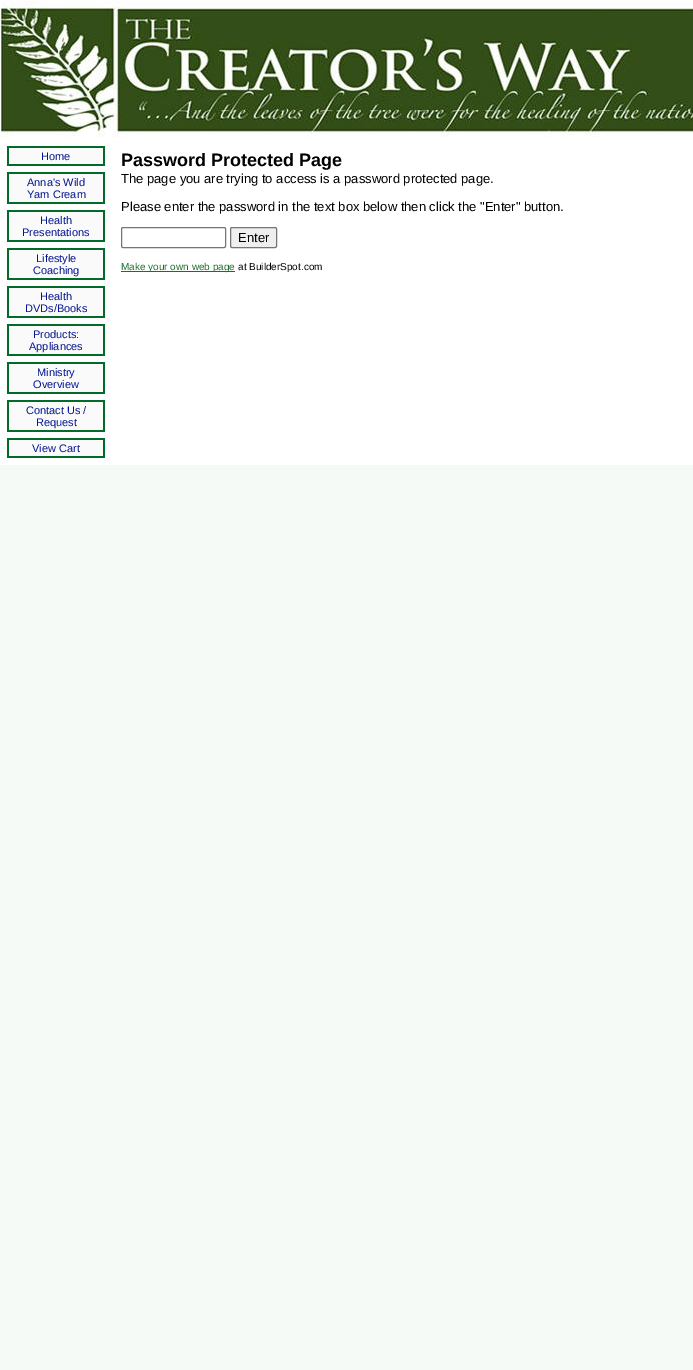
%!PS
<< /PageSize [693 1370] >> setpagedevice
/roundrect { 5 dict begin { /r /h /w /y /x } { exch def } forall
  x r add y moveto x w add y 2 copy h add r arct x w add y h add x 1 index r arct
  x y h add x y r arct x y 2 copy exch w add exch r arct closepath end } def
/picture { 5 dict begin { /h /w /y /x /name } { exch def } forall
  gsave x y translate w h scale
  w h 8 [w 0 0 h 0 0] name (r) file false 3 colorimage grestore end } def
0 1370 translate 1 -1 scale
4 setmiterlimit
0.961 0.98 0.965 setrgbcolor
0 0 693 1370 rectfill
1 setgray
0 0 693 465 rectfill
(img1.rgb) 1 1 692 138 picture
0.012 0.42 0.161 setrgbcolor
7 146 98 20 rectfill
0.98 setgray
9 148 94 16 rectfill
/LiberationSans-Regular [11 0 0 -11 0 0] selectfont
0.012 0.086 0.569 setrgbcolor
41 160 moveto (Home) show
0.012 0.42 0.161 setrgbcolor
7 172 98 32 rectfill
0.98 setgray
9 174 94 28 rectfill
0.012 0.086 0.569 setrgbcolor
27 186 moveto (Anna's Wild) show
27 198 moveto (Yam Cream) show
0.012 0.42 0.161 setrgbcolor
7 210 98 32 rectfill
0.98 setgray
9 212 94 28 rectfill
0.012 0.086 0.569 setrgbcolor
40 224 moveto (Health) show
22 236 moveto (Presentations) show
0.012 0.42 0.161 setrgbcolor
7 248 98 32 rectfill
0.98 setgray
9 250 94 28 rectfill
0.012 0.086 0.569 setrgbcolor
36 262 moveto (Lifestyle) show
33 274 moveto (Coaching) show
0.012 0.42 0.161 setrgbcolor
7 286 98 32 rectfill
0.98 setgray
9 288 94 28 rectfill
0.012 0.086 0.569 setrgbcolor
40 300 moveto (Health) show
25 312 moveto (DVDs/Books) show
0.012 0.42 0.161 setrgbcolor
7 324 98 32 rectfill
0.98 setgray
9 326 94 28 rectfill
0.012 0.086 0.569 setrgbcolor
33 338 moveto (Products:) show
29 350 moveto (Appliances) show
0.012 0.42 0.161 setrgbcolor
7 362 98 32 rectfill
0.98 setgray
9 364 94 28 rectfill
0.012 0.086 0.569 setrgbcolor
37 376 moveto (Ministry) show
33 388 moveto (Overview) show
0.012 0.42 0.161 setrgbcolor
7 400 98 32 rectfill
0.98 setgray
9 402 94 28 rectfill
0.012 0.086 0.569 setrgbcolor
26 414 moveto (Contact Us /) show
36 426 moveto (Request) show
0.012 0.42 0.161 setrgbcolor
7 438 98 20 rectfill
0.98 setgray
9 440 94 16 rectfill
0.012 0.086 0.569 setrgbcolor
32 452 moveto (View Cart) show
/LiberationSans-Bold [18 0 0 -18 0 0] selectfont
0 setgray
121 166 moveto (Password Protected Page) show
/LiberationSans-Regular [13 0 0 -13 0 0] selectfont
121 183 moveto (The page you are trying to access is a password protected page.) show
121 211 moveto (Please enter the password in the text box below then click the "Enter" button.) show
0.463 setgray
121.5 227.5 104 20 1.5 roundrect stroke
0.937 setgray
230.5 227.5 46 20 1.5 roundrect gsave fill grestore
0.463 setgray
stroke
0 setgray
238 242 moveto (Enter) show
0.098 0.439 0.153 setrgbcolor
121 271 114 1 rectfill
/LiberationSans-Regular [10 0 0 -10 0 0] selectfont
121 270 moveto (Make your own web page) show
0 setgray
238 270 moveto (at BuilderSpot.com) show
showpage
